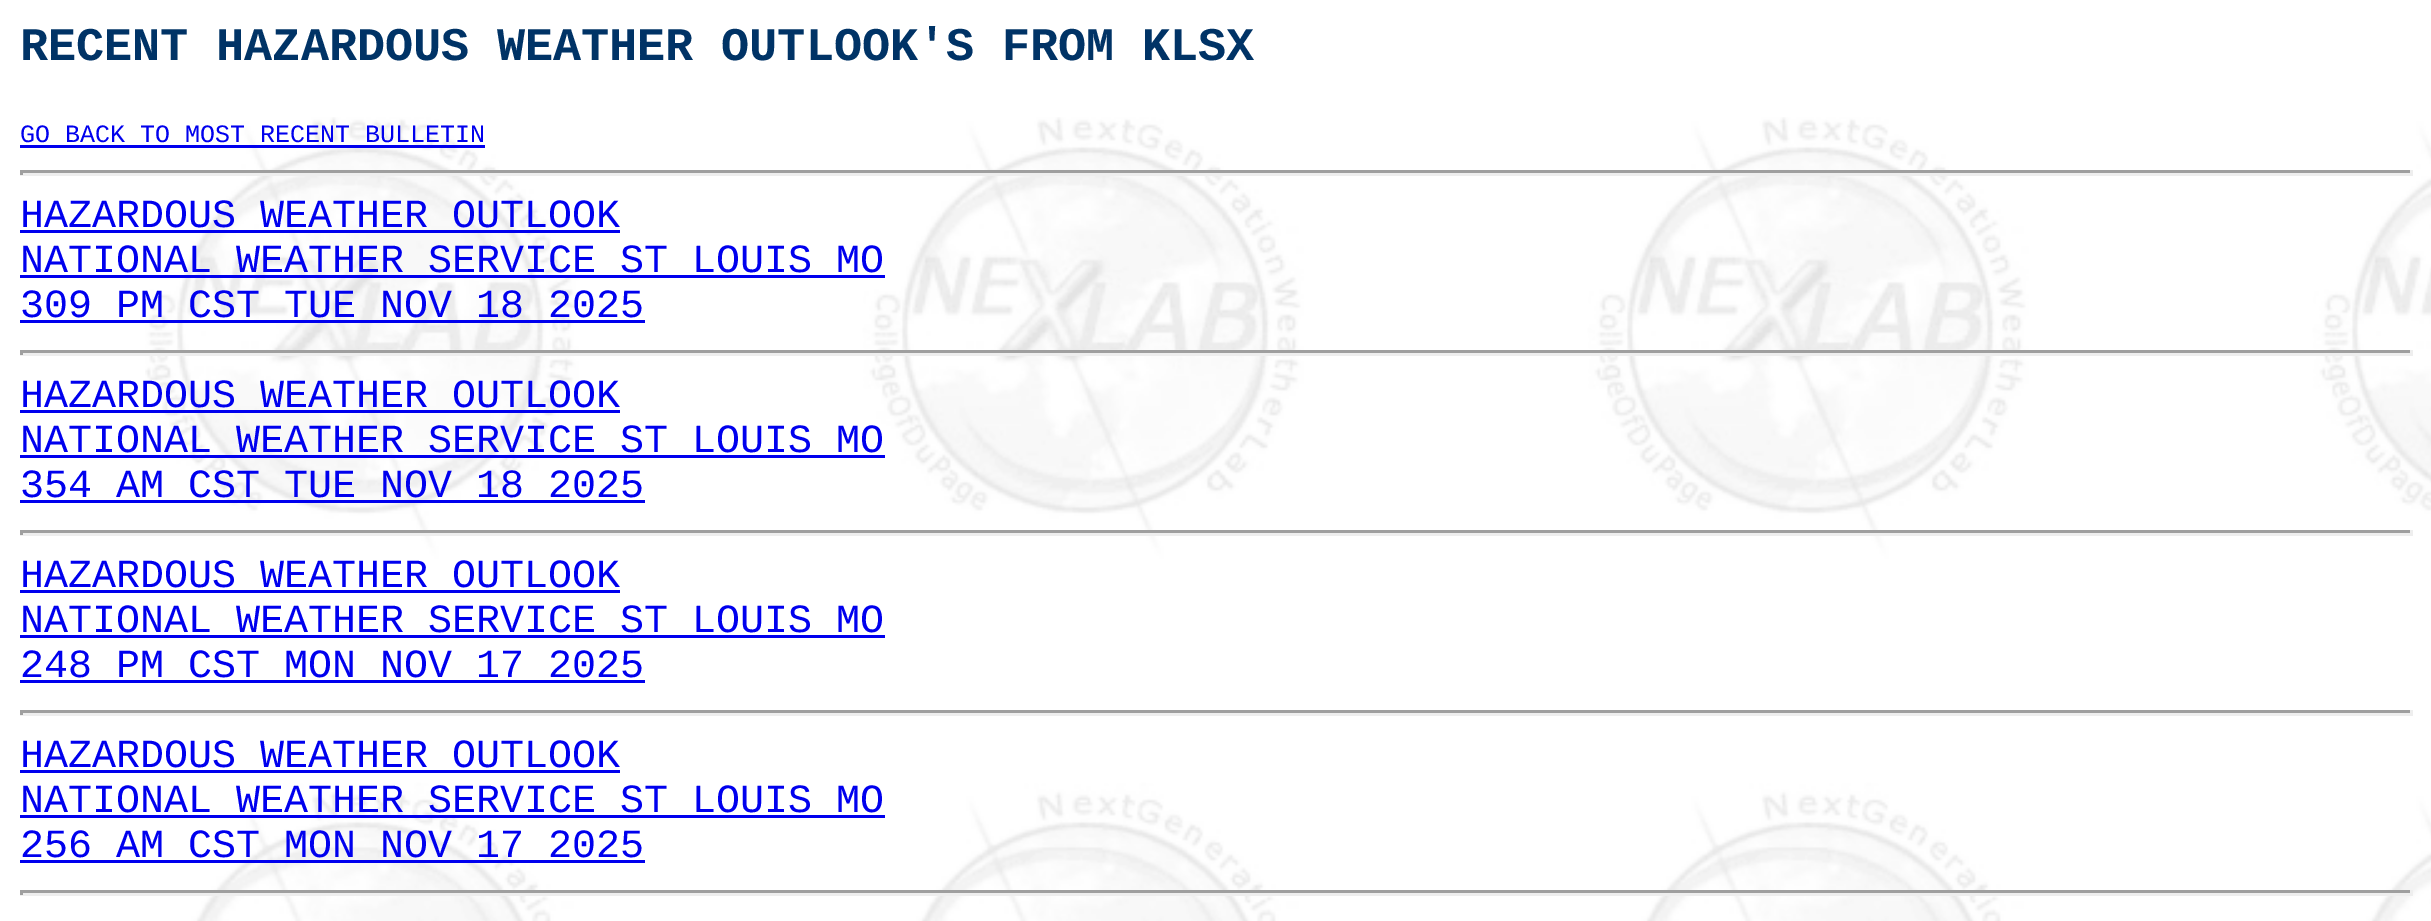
%!PS
<< /PageSize [2431 921] >> setpagedevice
/picture { 5 dict begin { /h /w /y /x /name } { exch def } forall
  gsave x y translate w h scale
  w h 8 [w 0 0 h 0 0] name (r) file false 3 colorimage grestore end } def
0 921 translate 1 -1 scale
4 setmiterlimit
1 setgray
0 0 2431 921 rectfill
(img1.rgb) 145 117 2286 804 picture
/LiberationMono-Bold [46.8 0 0 -46.8 0 0] selectfont
0 0.2 0.4 setrgbcolor
20 60 moveto -0.25 0 32 (RECENT HAZARDOUS WEATHER OUTLOOK'S FROM KLSX) widthshow
/LiberationMono-Regular [25 0 0 -25 0 0] selectfont
0 0 0.933 setrgbcolor
20 142 moveto (GO BACK TO MOST RECENT BULLETIN) show
20 145 465 3 rectfill
0.624 setgray
20 170 2393 3 rectfill
0.933 setgray
2410 170 3 5 rectfill
20 173 2393 3 rectfill
0.624 setgray
20 170 3 5 rectfill
/LiberationMono-Regular [40 0 0 -40 0 0] selectfont
0 0 0.933 setrgbcolor
20 227 moveto (HAZARDOUS WEATHER OUTLOOK) show
20 230 600 3 rectfill
20 272 moveto (NATIONAL WEATHER SERVICE ST LOUIS MO) show
20 275 865 3 rectfill
20 317 moveto (309 PM CST TUE NOV 18 2025) show
20 320 625 3 rectfill
0.624 setgray
20 350 2393 3 rectfill
0.933 setgray
2410 350 3 5 rectfill
20 353 2393 3 rectfill
0.624 setgray
20 350 3 5 rectfill
0 0 0.933 setrgbcolor
20 407 moveto (HAZARDOUS WEATHER OUTLOOK) show
20 410 600 3 rectfill
20 452 moveto (NATIONAL WEATHER SERVICE ST LOUIS MO) show
20 455 865 3 rectfill
20 497 moveto (354 AM CST TUE NOV 18 2025) show
20 500 625 3 rectfill
0.624 setgray
20 530 2393 3 rectfill
0.933 setgray
2410 530 3 5 rectfill
20 533 2393 3 rectfill
0.624 setgray
20 530 3 5 rectfill
0 0 0.933 setrgbcolor
20 587 moveto (HAZARDOUS WEATHER OUTLOOK) show
20 590 600 3 rectfill
20 632 moveto (NATIONAL WEATHER SERVICE ST LOUIS MO) show
20 635 865 3 rectfill
20 677 moveto (248 PM CST MON NOV 17 2025) show
20 680 625 3 rectfill
0.624 setgray
20 710 2393 3 rectfill
0.933 setgray
2410 710 3 5 rectfill
20 713 2393 3 rectfill
0.624 setgray
20 710 3 5 rectfill
0 0 0.933 setrgbcolor
20 767 moveto (HAZARDOUS WEATHER OUTLOOK) show
20 770 600 3 rectfill
20 812 moveto (NATIONAL WEATHER SERVICE ST LOUIS MO) show
20 815 865 3 rectfill
20 857 moveto (256 AM CST MON NOV 17 2025) show
20 860 625 3 rectfill
0.624 setgray
20 890 2393 3 rectfill
0.933 setgray
2410 890 3 5 rectfill
20 893 2393 3 rectfill
0.624 setgray
20 890 3 5 rectfill
showpage
